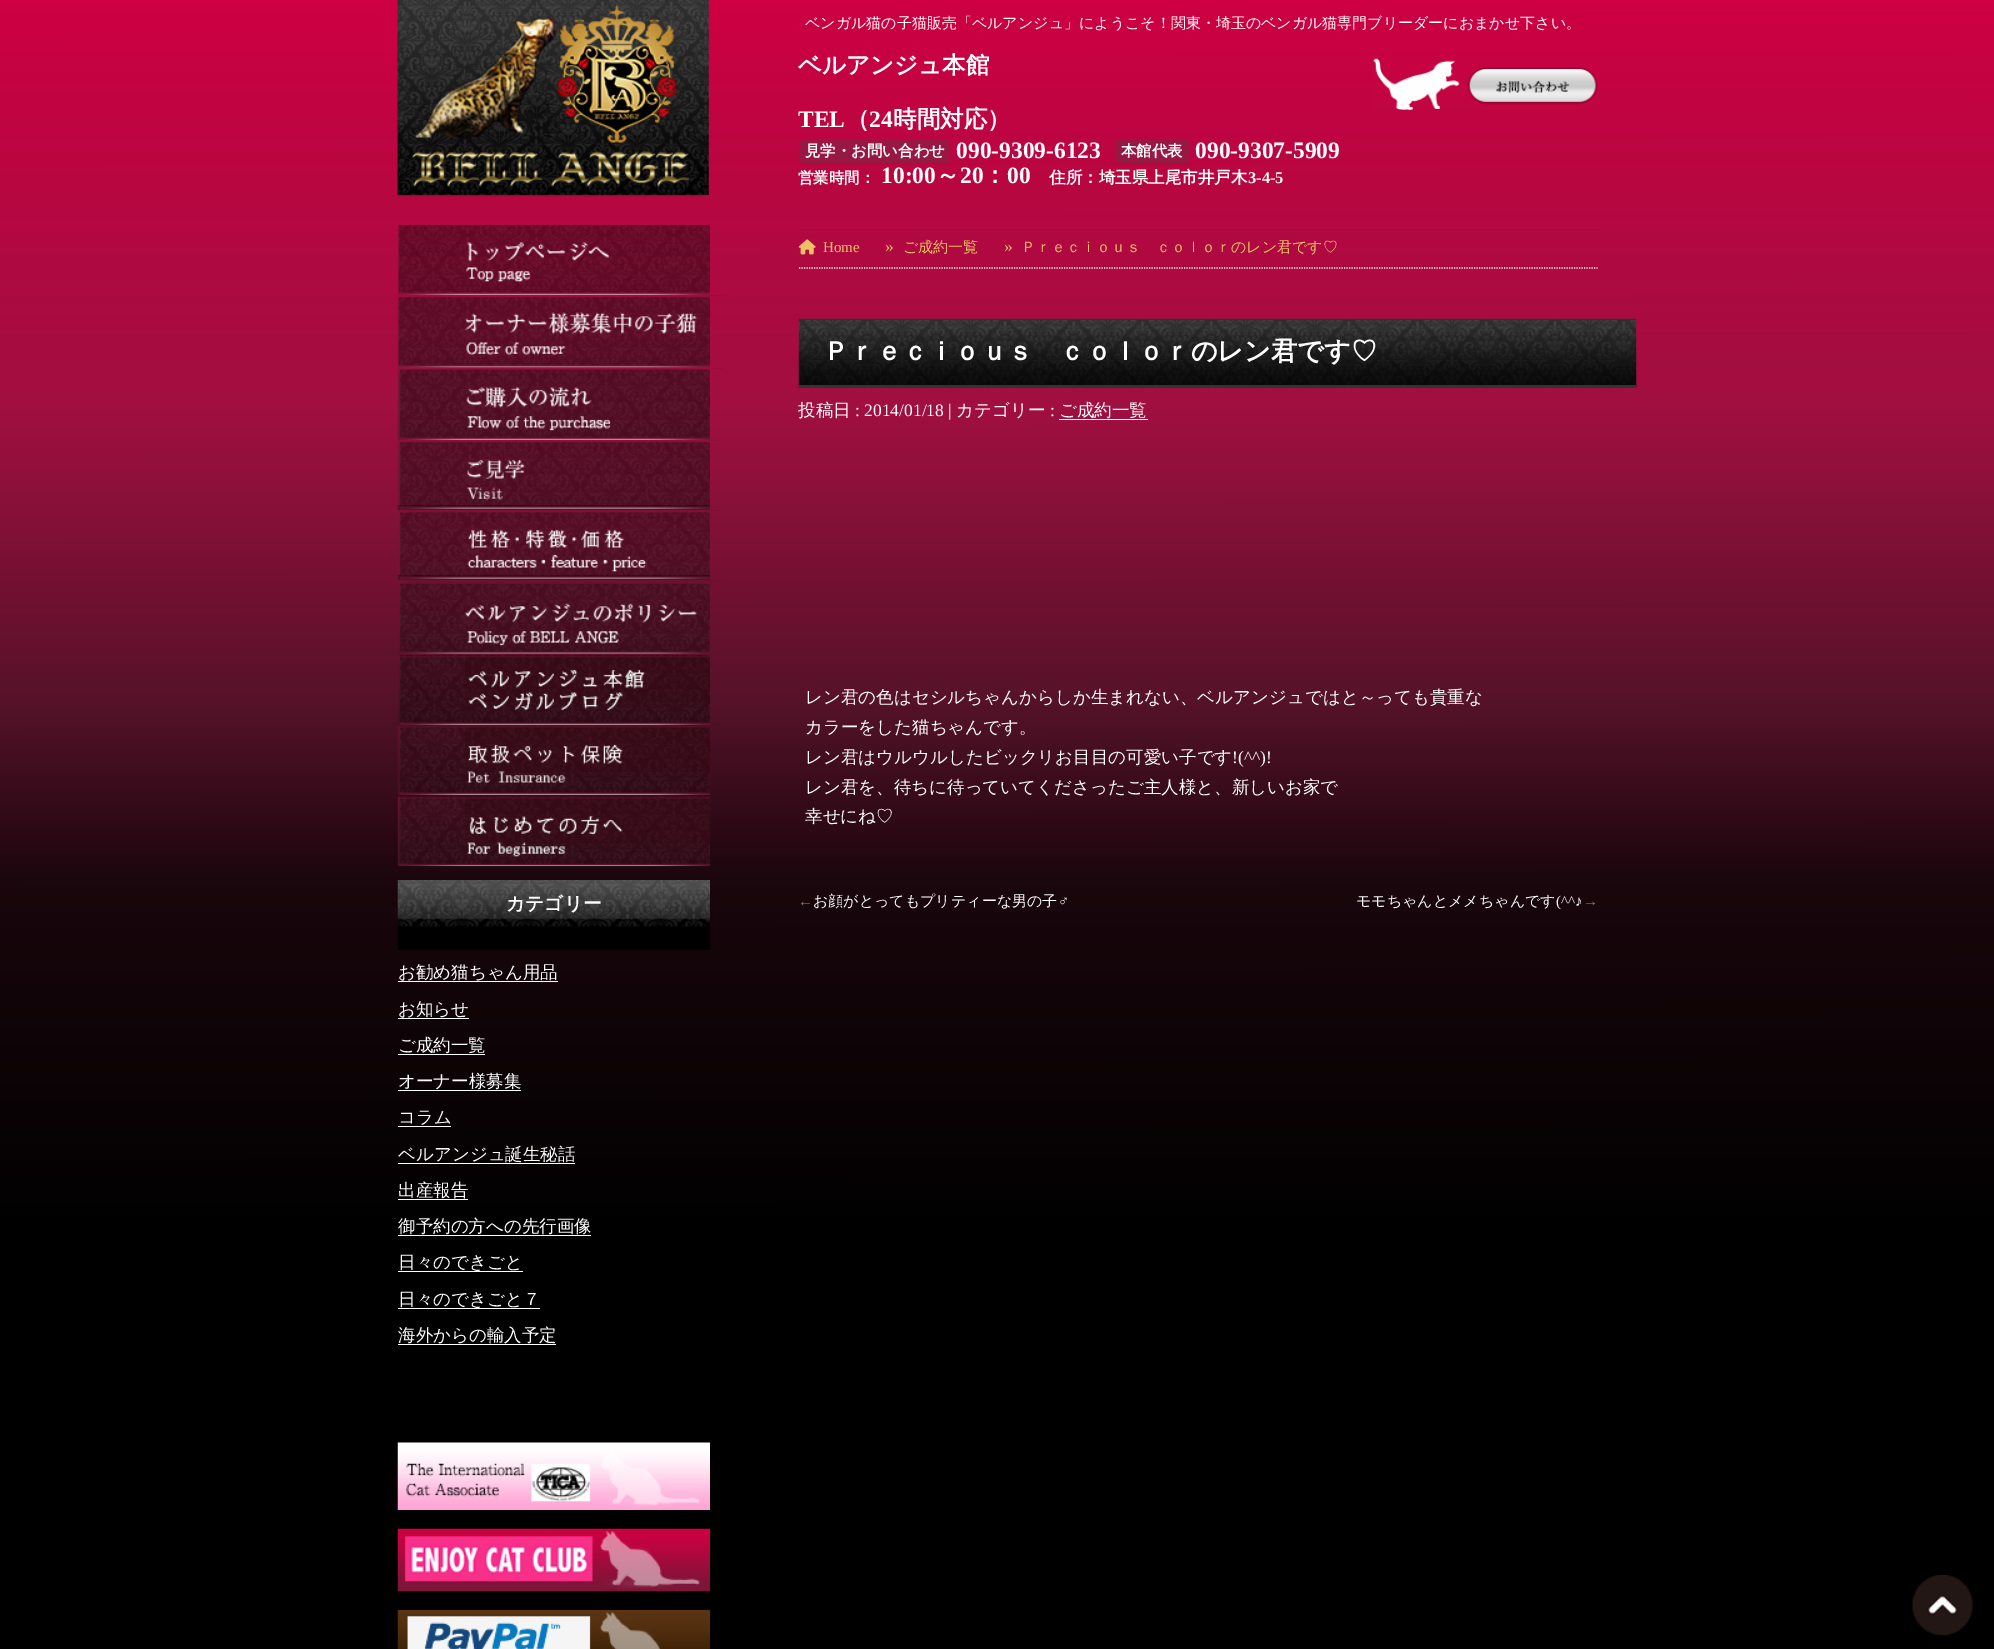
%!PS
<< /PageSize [1994 1649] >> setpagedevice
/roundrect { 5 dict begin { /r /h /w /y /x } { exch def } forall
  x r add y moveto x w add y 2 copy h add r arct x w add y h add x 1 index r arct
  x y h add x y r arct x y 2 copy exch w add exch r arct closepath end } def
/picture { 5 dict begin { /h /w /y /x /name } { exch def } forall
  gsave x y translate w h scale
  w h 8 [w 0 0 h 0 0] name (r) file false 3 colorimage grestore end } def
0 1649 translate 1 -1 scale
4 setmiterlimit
0 setgray
0 0 1994 1649 rectfill
gsave newpath 0 0 moveto 1994 0 lineto 1994 1215 lineto 0 1215 lineto closepath clip newpath
<< /ShadingType 2 /ColorSpace /DeviceRGB /Coords [997 0 998 1250] /Extend [true true] /Function << /FunctionType 3 /Domain [0 1] /Functions [<< /FunctionType 2 /Domain [0 1] /C0 [0.804 0 0.263] /C1 [0.624 0.059 0.251] /N 1 >> << /FunctionType 2 /Domain [0 1] /C0 [0.624 0.059 0.251] /C1 [0.337 0.071 0.161] /N 1 >> << /FunctionType 2 /Domain [0 1] /C0 [0.337 0.071 0.161] /C1 [0.098 0.024 0.047] /N 1 >> << /FunctionType 2 /Domain [0 1] /C0 [0.098 0.024 0.047] /C1 [0 0 0] /N 1 >>] /Bounds [0.33 0.56 0.71] /Encode [0 1 0 1 0 1 0 1] >> >> shfill grestore
/WenQuanYiZenHei-Medium [15 0 0 -15 0 0] selectfont
1 setgray
805 28 moveto (ベンガル猫の子猫販売「ベルアンジュ」にようこそ！関東・埼玉のベンガル猫専門ブリーダーにおまかせ下さい。) show
1.2 setlinewidth
[1.25 1.25] 0 setdash
newpath 799 268 moveto 1597.5 268 lineto stroke
/WenQuanYiZenHei-Bold [23.5 0 0 -23.5 0 0] selectfont
798 73 moveto (ベルアンジュ本館) show
(img1.rgb) 1373 58 225 52 picture
/LiberationSerif-Bold [23.5 0 0 -23.5 0 0] selectfont
798 127 moveto (TEL) show
/WenQuanYiZenHei-Bold [23.5 0 0 -23.5 0 0] selectfont
846 127 moveto (（) show
/LiberationSerif-Bold [23.5 0 0 -23.5 0 0] selectfont
869 127 moveto (24) show
/WenQuanYiZenHei-Bold [23.5 0 0 -23.5 0 0] selectfont
893 127 moveto (時間対応）) show
0.592 0.098 0.263 setrgbcolor
799 140 151 23 5 roundrect fill
/WenQuanYiZenHei-Bold [15.4 0 0 -15.4 0 0] selectfont
1 setgray
805 156 moveto (見学・お問い合わせ) show
/LiberationSerif-Bold [23.5 0 0 -23.5 0 0] selectfont
956 158 moveto (090-9309-6123) show
0.592 0.098 0.263 setrgbcolor
1115 140 74 23 5 roundrect fill
/WenQuanYiZenHei-Bold [15.4 0 0 -15.4 0 0] selectfont
1 setgray
1121 156 moveto (本館代表) show
/LiberationSerif-Bold [23.5 0 0 -23.5 0 0] selectfont
1195 158 moveto (090-9307-5909) show
/WenQuanYiZenHei-Bold [15.4 0 0 -15.4 0 0] selectfont
798 183 moveto (営業時間：) show
/LiberationSerif-Bold [23.5 0 0 -23.5 0 0] selectfont
881 183 moveto (10:00) show
/WenQuanYiZenHei-Bold [23.5 0 0 -23.5 0 0] selectfont
936 183 moveto (～) show
/LiberationSerif-Bold [23.5 0 0 -23.5 0 0] selectfont
960 183 moveto (20) show
/WenQuanYiZenHei-Bold [23.5 0 0 -23.5 0 0] selectfont
983 183 moveto (：) show
/LiberationSerif-Bold [23.5 0 0 -23.5 0 0] selectfont
1007 183 moveto (00) show
/WenQuanYiZenHei-Bold [16.5 0 0 -16.5 0 0] selectfont
1049 183 moveto (住所：埼玉県上尾市井戸木) show
/LiberationSerif-Bold [16.5 0 0 -16.5 0 0] selectfont
1248 183 moveto (3-4-5) show
0.659 0.031 0.239 setrgbcolor
799 229 799 1 rectfill
0.647 0.035 0.239 setrgbcolor
799 266 799 1 rectfill
(img2.rgb) 798 239 18 16 picture
/LiberationSerif-Regular [15 0 0 -15 0 0] selectfont
0.925 0.761 0.396 setrgbcolor
823 252 moveto (Home) show
/LiberationSerif-Regular [17.5 0 0 -17.5 0 0] selectfont
885 252 moveto (») show
/WenQuanYiZenHei-Medium [15 0 0 -15 0 0] selectfont
903 252 moveto (ご成約一覧) show
/LiberationSerif-Regular [17.5 0 0 -17.5 0 0] selectfont
1004 252 moveto (») show
/WenQuanYiZenHei-Medium [15 0 0 -15 0 0] selectfont
1021 252 moveto (Ｐｒｅｃｉｏｕｓ　ｃｏｌｏｒのレン君です♡) show
(img3.rgb) 798 318 839 70 picture
0.2 setgray
799 385 837 3 rectfill
/WenQuanYiZenHei-Bold [26.25 0 0 -26.25 0 0] selectfont
1 setgray
823 360 moveto (Ｐｒｅｃｉｏｕｓ　ｃｏｌｏｒのレン君です♡) show
/WenQuanYiZenHei-Medium [17.5 0 0 -17.5 0 0] selectfont
798 416 moveto (投稿日) show
/LiberationSerif-Regular [17.5 0 0 -17.5 0 0] selectfont
855 416 moveto (: 2014/01/18 |) show
/WenQuanYiZenHei-Medium [17.5 0 0 -17.5 0 0] selectfont
956 416 moveto (カテゴリー) show
/LiberationSerif-Regular [17.5 0 0 -17.5 0 0] selectfont
1050 416 moveto (:) show
/WenQuanYiZenHei-Medium [17.5 0 0 -17.5 0 0] selectfont
1059 416 moveto (ご成約一覧) show
1059 419 89 1 rectfill
805 703 moveto (レン君の色はセシルちゃんからしか生まれない、ベルアンジュではと～っても貴重な) show
805 733 moveto (カラーをした猫ちゃんです。) show
805 763 moveto (レン君はウルウルしたビックリお目目の可愛い子です) show
/LiberationSerif-Regular [17.5 0 0 -17.5 0 0] selectfont
1232 763 moveto (!\(^^\)!) show
/WenQuanYiZenHei-Medium [17.5 0 0 -17.5 0 0] selectfont
805 793 moveto (レン君を、待ちに待っていてくださったご主人様と、新しいお家で) show
805 822 moveto (幸せにね♡) show
/LiberationSerif-Regular [15 0 0 -15 0 0] selectfont
0.533 setgray
798 906 moveto (←) show
/WenQuanYiZenHei-Medium [15 0 0 -15 0 0] selectfont
1 setgray
813 906 moveto (お顔がとってもプリティーな男の子) show
/LiberationSerif-Regular [15 0 0 -15 0 0] selectfont
1058 906 moveto (♂) show
/WenQuanYiZenHei-Medium [15 0 0 -15 0 0] selectfont
1356 906 moveto (モモちゃんとメメちゃんです) show
/LiberationSerif-Regular [15 0 0 -15 0 0] selectfont
1556 906 moveto (\(^^♪) show
0.533 setgray
1583 906 moveto (→) show
(img4.rgb) 397 0 312 197 picture
0.635 0.039 0.239 setrgbcolor
398 295 325 1 rectfill
(img5.rgb) 397 225 313 70 picture
0.604 0.047 0.235 setrgbcolor
398 368 325 1 rectfill
(img6.rgb) 397 296 313 72 picture
0.561 0.055 0.227 setrgbcolor
398 440 325 1 rectfill
(img7.rgb) 397 369 313 71 picture
0.494 0.059 0.208 setrgbcolor
398 510 325 1 rectfill
(img8.rgb) 397 441 313 69 picture
0.427 0.063 0.188 setrgbcolor
398 580 325 1 rectfill
(img9.rgb) 397 511 313 69 picture
0.361 0.067 0.165 setrgbcolor
398 654 325 1 rectfill
(img10.rgb) 399 581 311 73 picture
0.286 0.059 0.137 setrgbcolor
398 725 325 1 rectfill
(img11.rgb) 398 655 312 70 picture
0.204 0.043 0.094 setrgbcolor
398 795 325 1 rectfill
(img12.rgb) 397 726 313 69 picture
(img13.rgb) 397 796 313 71 picture
(img14.rgb) 397 880 313 70 picture
/WenQuanYiZenHei-Bold [18.75 0 0 -18.75 0 0] selectfont
1 setgray
506 910 moveto (カテゴリー) show
/WenQuanYiZenHei-Medium [17.5 0 0 -17.5 0 0] selectfont
398 978 moveto (お勧め猫ちゃん用品) show
398 981 160 1 rectfill
398 1015 moveto (お知らせ) show
398 1018 71 1 rectfill
398 1051 moveto (ご成約一覧) show
398 1054 87 1 rectfill
398 1087 moveto (オーナー様募集) show
398 1090 123 1 rectfill
398 1123 moveto (コラム) show
398 1126 53 1 rectfill
398 1160 moveto (ベルアンジュ誕生秘話) show
398 1163 177 1 rectfill
398 1196 moveto (出産報告) show
398 1199 70 1 rectfill
398 1232 moveto (御予約の方への先行画像) show
398 1235 193 1 rectfill
398 1271 125 1 rectfill
398 1268 moveto (日々のできごと) show
398 1308 142 1 rectfill
398 1305 moveto (日々のできごと７) show
398 1341 moveto (海外からの輸入予定) show
398 1344 158 1 rectfill
(img15.rgb) 397 1442 313 68 picture
(img16.rgb) 397 1528 313 64 picture
(img17.rgb) 397 1610 313 39 picture
(img18.rgb) 1912 1575 61 61 picture
showpage
